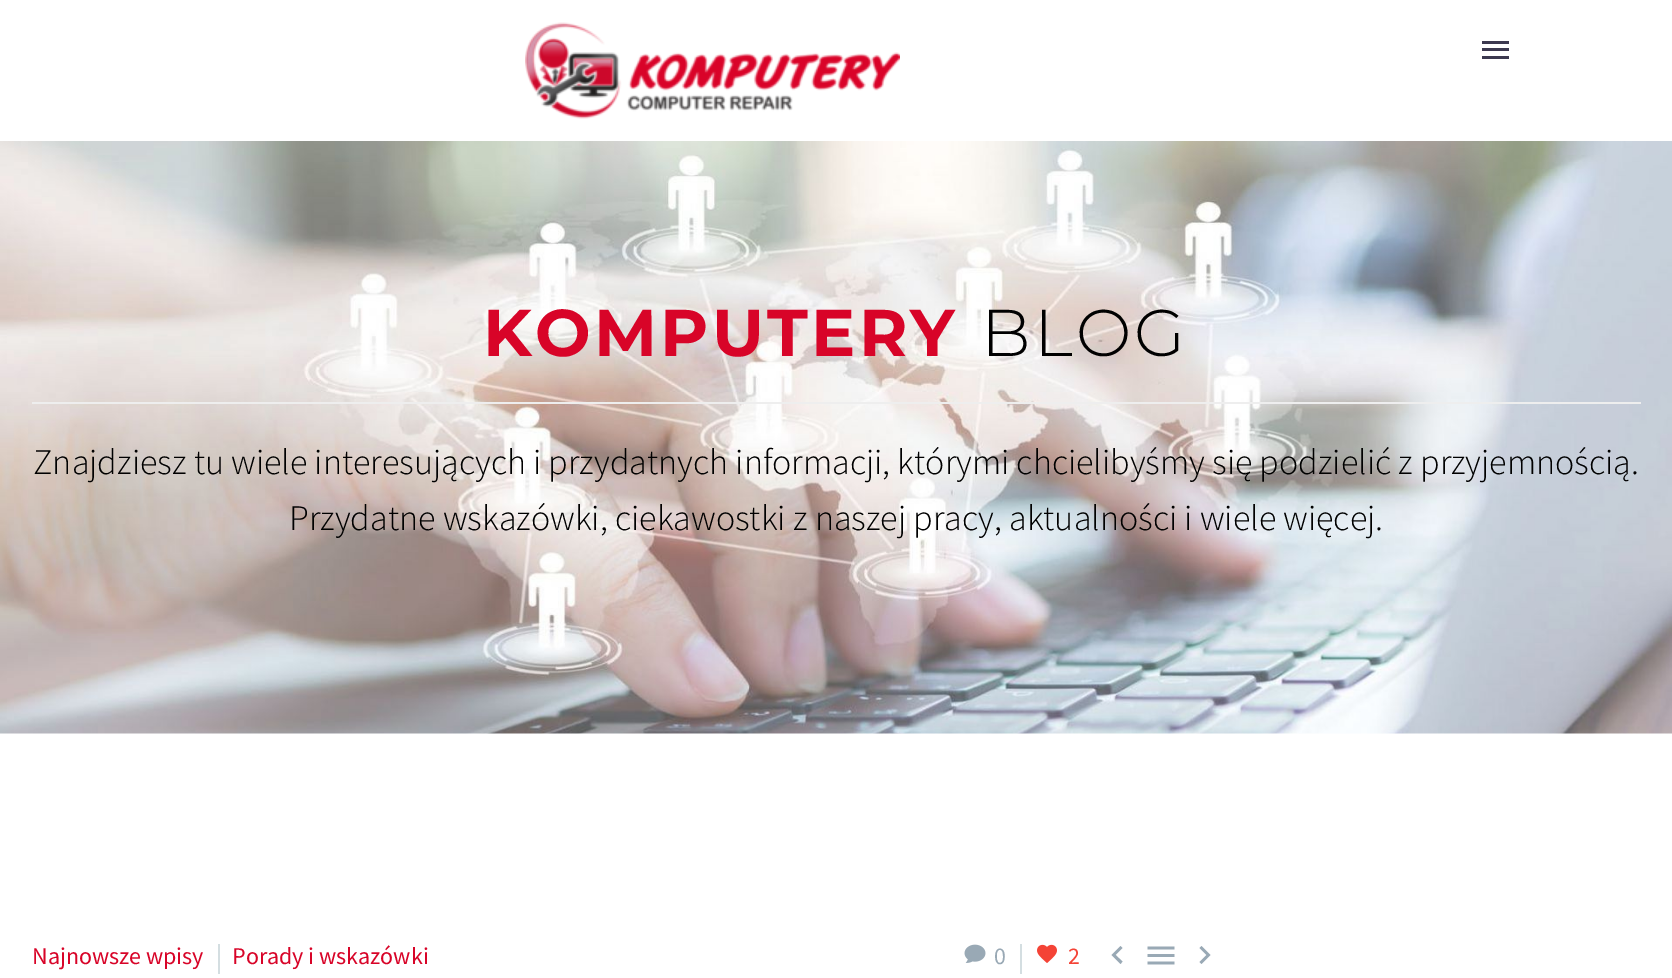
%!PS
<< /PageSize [1672 978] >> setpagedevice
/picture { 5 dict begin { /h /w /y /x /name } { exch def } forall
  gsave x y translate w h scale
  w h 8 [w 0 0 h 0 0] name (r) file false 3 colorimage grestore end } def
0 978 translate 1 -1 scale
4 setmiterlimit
1 setgray
0 0 1672 978 rectfill
(img1.rgb) 525 22 375 97 picture
0.235 0.224 0.314 setrgbcolor
1482 41 27 3 rectfill
1482 48 27 3 rectfill
1482 56 27 3 rectfill
(img2.rgb) 0 141 1672 593 picture
/Montserrat-Bold [66 0 0 -66 0 0] selectfont
0.847 0.016 0.157 setrgbcolor
483 356 moveto 3.25 0 (KOMPUTERY) ashow
/Montserrat-Light [66 0 0 -66 0 0] selectfont
0 setgray
981 356 moveto 3.25 0 (BLOG) ashow
0.933 setgray
32 402 1609 2 rectfill
/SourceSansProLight-Light [36 0 0 -36 0 0] selectfont
0 setgray
33 474 moveto (Znajdziesz tu wiele interesujących i przydatnych informacji, którymi chcielibyśmy się podzielić z przyjemnością.) show
289 530 moveto (Przydatne wskazówki, ciekawostki z naszej pracy, aktualności i wiele więcej.) show
/SourceSansPro-Regular [24 0 0 -24 0 0] selectfont
0.847 0.016 0.157 setrgbcolor
32 964 moveto (Najnowsze wpisy) show
0.831 0.871 0.882 setrgbcolor
218 944 2 30 rectfill
0.847 0.016 0.157 setrgbcolor
232 964 moveto (Porady i wskazówki) show
(img3.rgb) 964 944 22 19 picture
0.6 0.663 0.71 setrgbcolor
994 964 moveto (0) show
0.831 0.871 0.882 setrgbcolor
1020 944 2 30 rectfill
(img4.rgb) 1037 944 20 19 picture
0.957 0.263 0.212 setrgbcolor
1068 964 moveto (2) show
0.6 0.663 0.71 setrgbcolor
newpath 1122.5 961.5 moveto 1115.5 955 lineto 1122.5 948 lineto 1120.5 946 lineto 1111.5 955 lineto 1120.5 964 lineto closepath fill
(img5.rgb) 1147 946 28 19 picture
newpath 1199.5 962 moveto 1206.5 955 lineto 1199.5 948 lineto 1201.5 946 lineto 1210.5 955 lineto 1201.5 964 lineto closepath fill
showpage
